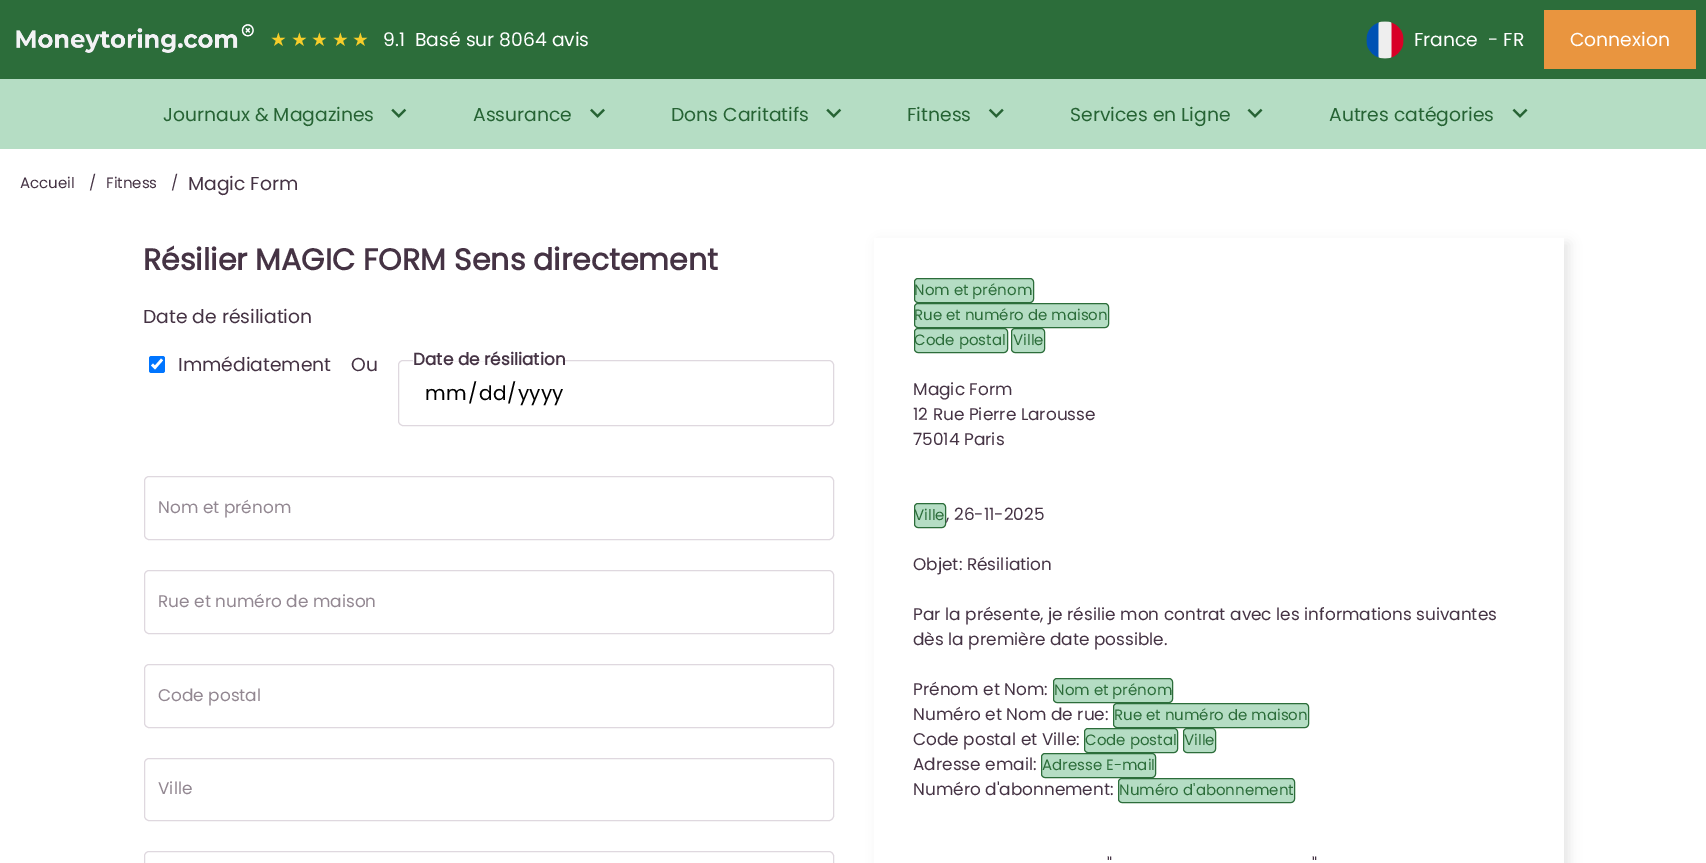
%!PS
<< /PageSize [1706 863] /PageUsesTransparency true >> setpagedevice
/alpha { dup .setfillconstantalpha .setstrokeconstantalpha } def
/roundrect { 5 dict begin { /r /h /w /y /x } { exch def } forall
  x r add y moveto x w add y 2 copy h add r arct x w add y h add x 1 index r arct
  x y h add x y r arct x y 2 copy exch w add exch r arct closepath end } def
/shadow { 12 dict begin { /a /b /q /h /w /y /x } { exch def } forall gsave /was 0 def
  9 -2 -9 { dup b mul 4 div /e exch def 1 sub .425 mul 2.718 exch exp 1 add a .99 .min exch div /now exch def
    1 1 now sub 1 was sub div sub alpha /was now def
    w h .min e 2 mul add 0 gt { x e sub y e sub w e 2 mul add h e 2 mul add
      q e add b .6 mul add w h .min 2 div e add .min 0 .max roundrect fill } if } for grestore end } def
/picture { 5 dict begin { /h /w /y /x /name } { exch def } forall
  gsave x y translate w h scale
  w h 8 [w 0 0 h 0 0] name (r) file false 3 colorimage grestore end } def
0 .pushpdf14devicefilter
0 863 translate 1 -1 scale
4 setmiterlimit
1 setgray
0 0 1706 863 rectfill
0.173 0.427 0.227 setrgbcolor
0 0 1706 79 rectfill
(img1.rgb) 16 24 238 29 picture
/DejaVuSans-Regular [18.75 0 0 -18.75 0 0] selectfont
0.965 0.804 0.165 setrgbcolor
270 46 moveto 3.75 0 (★★★★★) ashow
/Poppins-Regular [18.75 0 0 -18.75 0 0] selectfont
1 setgray
383 46 moveto (9.1) show
415 46 moveto (Basé sur 8064 avis) show
(img2.rgb) 1366 21 38 38 picture
1414 46 moveto (France) show
1488 46 moveto (- FR) show
0.914 0.584 0.247 setrgbcolor
1544 10 152 59 rectfill
1 setgray
1570 46 moveto (Connexion) show
0.71 0.867 0.769 setrgbcolor
0 79 1706 70 rectfill
0.149 0.388 0.204 setrgbcolor
163 121 moveto (Journaux & Magazines) show
(img3.rgb) 391 108 16 10 picture
473 121 moveto (Assurance) show
(img4.rgb) 590 108 15 10 picture
671 121 moveto (Dons Caritatifs) show
(img3.rgb) 826 108 16 10 picture
907 121 moveto (Fitness) show
(img5.rgb) 988 108 16 10 picture
1070 121 moveto (Services en Ligne) show
(img6.rgb) 1247 108 16 10 picture
1329 121 moveto (Autres catégories) show
(img6.rgb) 1512 108 16 10 picture
/Poppins-Regular [15 0 0 -15 0 0] selectfont
0.271 0.2 0.267 setrgbcolor
20 188 moveto (Accueil) show
89 188 moveto (/) show
106 188 moveto (Fitness) show
171 188 moveto (/) show
/Poppins-Regular [18.75 0 0 -18.75 0 0] selectfont
188 190 moveto (Magic Form) show
/Poppins-Bold [30 0 0 -30 0 0] selectfont
143 270 moveto (Résilier MAGIC FORM Sens directement) show
/Poppins-Regular [18.75 0 0 -18.75 0 0] selectfont
143 323 moveto (Date de résiliation) show
0 0.459 1 setrgbcolor
149 356 16 17 2.5 roundrect fill
1 setgray
2.6 setlinewidth
newpath 152 364.5 moveto 155 367.5 lineto 162 359.5 lineto stroke
0.271 0.2 0.267 setrgbcolor
178 371 moveto (Immédiatement) show
351 371 moveto (Ou) show
0.875 0.847 0.875 setrgbcolor
1 setlinewidth
398.5 360.5 435 65 4.5 roundrect stroke
1 setgray
413 360 152 1 rectfill
/Poppins-Bold [16.9 0 0 -16.9 0 0] selectfont
0.271 0.2 0.267 setrgbcolor
413 365 moveto (Date de résiliation) show
/Poppins-Regular [20 0 0 -20 0 0] selectfont
0 setgray
425 400 moveto (mm) show
468 400 moveto (/) show
479 400 moveto (dd) show
507 400 moveto (/) show
518 400 moveto (yyyy) show
0.875 0.847 0.875 setrgbcolor
144.5 476.5 689 63 4.5 roundrect stroke
/Poppins-Regular [16.9 0 0 -16.9 0 0] selectfont
0.573 0.529 0.569 setrgbcolor
158 513 moveto (Nom et prénom) show
0.875 0.847 0.875 setrgbcolor
144.5 570.5 689 63 4.5 roundrect stroke
0.573 0.529 0.569 setrgbcolor
158 607 moveto (Rue et numéro de maison) show
0.875 0.847 0.875 setrgbcolor
144.5 664.5 689 63 4.5 roundrect stroke
0.573 0.529 0.569 setrgbcolor
158 701 moveto (Code postal) show
0.875 0.847 0.875 setrgbcolor
144.5 758.5 689 62 4.5 roundrect stroke
0.573 0.529 0.569 setrgbcolor
158 794 moveto (Ville) show
0.875 0.847 0.875 setrgbcolor
144.5 851.5 689 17 4.5 roundrect stroke
0 setgray
879 243 690 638 0 6 0.1 shadow
1 setgray
874 238 690 625 rectfill
0.71 0.867 0.769 setrgbcolor
914.5 278.5 119 24 3.5 roundrect gsave fill grestore
0.173 0.427 0.227 setrgbcolor
stroke
/Poppins-Regular [15 0 0 -15 0 0] selectfont
914 295 moveto (Nom et prénom) show
0.71 0.867 0.769 setrgbcolor
914.5 303.5 194 24 3.5 roundrect gsave fill grestore
0.173 0.427 0.227 setrgbcolor
stroke
914 320 moveto (Rue et numéro de maison) show
0.71 0.867 0.769 setrgbcolor
914.5 328.5 93 24 3.5 roundrect gsave fill grestore
0.173 0.427 0.227 setrgbcolor
stroke
914 345 moveto (Code postal) show
0.71 0.867 0.769 setrgbcolor
1011.5 328.5 33 24 3.5 roundrect gsave fill grestore
0.173 0.427 0.227 setrgbcolor
stroke
1013 345 moveto (Ville) show
/Poppins-Regular [16.9 0 0 -16.9 0 0] selectfont
0.271 0.2 0.267 setrgbcolor
913 395 moveto (Magic Form) show
913 420 moveto (12 Rue Pierre Larousse) show
913 445 moveto (75014 Paris) show
0.71 0.867 0.769 setrgbcolor
914.5 503.5 31 24 3.5 roundrect gsave fill grestore
0.173 0.427 0.227 setrgbcolor
stroke
/Poppins-Regular [15 0 0 -15 0 0] selectfont
914 520 moveto (Ville) show
/Poppins-Regular [16.9 0 0 -16.9 0 0] selectfont
0.271 0.2 0.267 setrgbcolor
946 520 moveto (, 26-11-2025) show
913 570 moveto (Objet: Résiliation) show
913 620 moveto (Par la présente, je résilie mon contrat avec les informations suivantes) show
913 645 moveto (dès la première date possible.) show
913 695 moveto (Prénom et Nom:) show
0.71 0.867 0.769 setrgbcolor
1053.5 678.5 119 24 3.5 roundrect gsave fill grestore
0.173 0.427 0.227 setrgbcolor
stroke
/Poppins-Regular [15 0 0 -15 0 0] selectfont
1054 695 moveto (Nom et prénom) show
/Poppins-Regular [16.9 0 0 -16.9 0 0] selectfont
0.271 0.2 0.267 setrgbcolor
913 720 moveto (Numéro et Nom de rue:) show
0.71 0.867 0.769 setrgbcolor
1113.5 703.5 195 24 3.5 roundrect gsave fill grestore
0.173 0.427 0.227 setrgbcolor
stroke
/Poppins-Regular [15 0 0 -15 0 0] selectfont
1114 720 moveto (Rue et numéro de maison) show
/Poppins-Regular [16.9 0 0 -16.9 0 0] selectfont
0.271 0.2 0.267 setrgbcolor
913 745 moveto (Code postal et Ville:) show
0.71 0.867 0.769 setrgbcolor
1084.5 728.5 93 24 3.5 roundrect gsave fill grestore
0.173 0.427 0.227 setrgbcolor
stroke
/Poppins-Regular [15 0 0 -15 0 0] selectfont
1085 745 moveto (Code postal) show
0.71 0.867 0.769 setrgbcolor
1183.5 728.5 32 24 3.5 roundrect gsave fill grestore
0.173 0.427 0.227 setrgbcolor
stroke
1184 745 moveto (Ville) show
/Poppins-Regular [16.9 0 0 -16.9 0 0] selectfont
0.271 0.2 0.267 setrgbcolor
913 770 moveto (Adresse email:) show
0.71 0.867 0.769 setrgbcolor
1041.5 753.5 114 24 3.5 roundrect gsave fill grestore
0.173 0.427 0.227 setrgbcolor
stroke
/Poppins-Regular [15 0 0 -15 0 0] selectfont
1042 770 moveto (Adresse E-mail) show
/Poppins-Regular [16.9 0 0 -16.9 0 0] selectfont
0.271 0.2 0.267 setrgbcolor
913 795 moveto (Numéro d'abonnement:) show
0.71 0.867 0.769 setrgbcolor
1118.5 778.5 176 24 3.5 roundrect gsave fill grestore
0.173 0.427 0.227 setrgbcolor
stroke
/Poppins-Regular [15 0 0 -15 0 0] selectfont
1119 795 moveto (Numéro d'abonnement) show
/Poppins-Regular [16.9 0 0 -16.9 0 0] selectfont
0.271 0.2 0.267 setrgbcolor
1107 870 moveto (") show
1312 870 moveto (") show
.poppdf14devicefilter showpage
